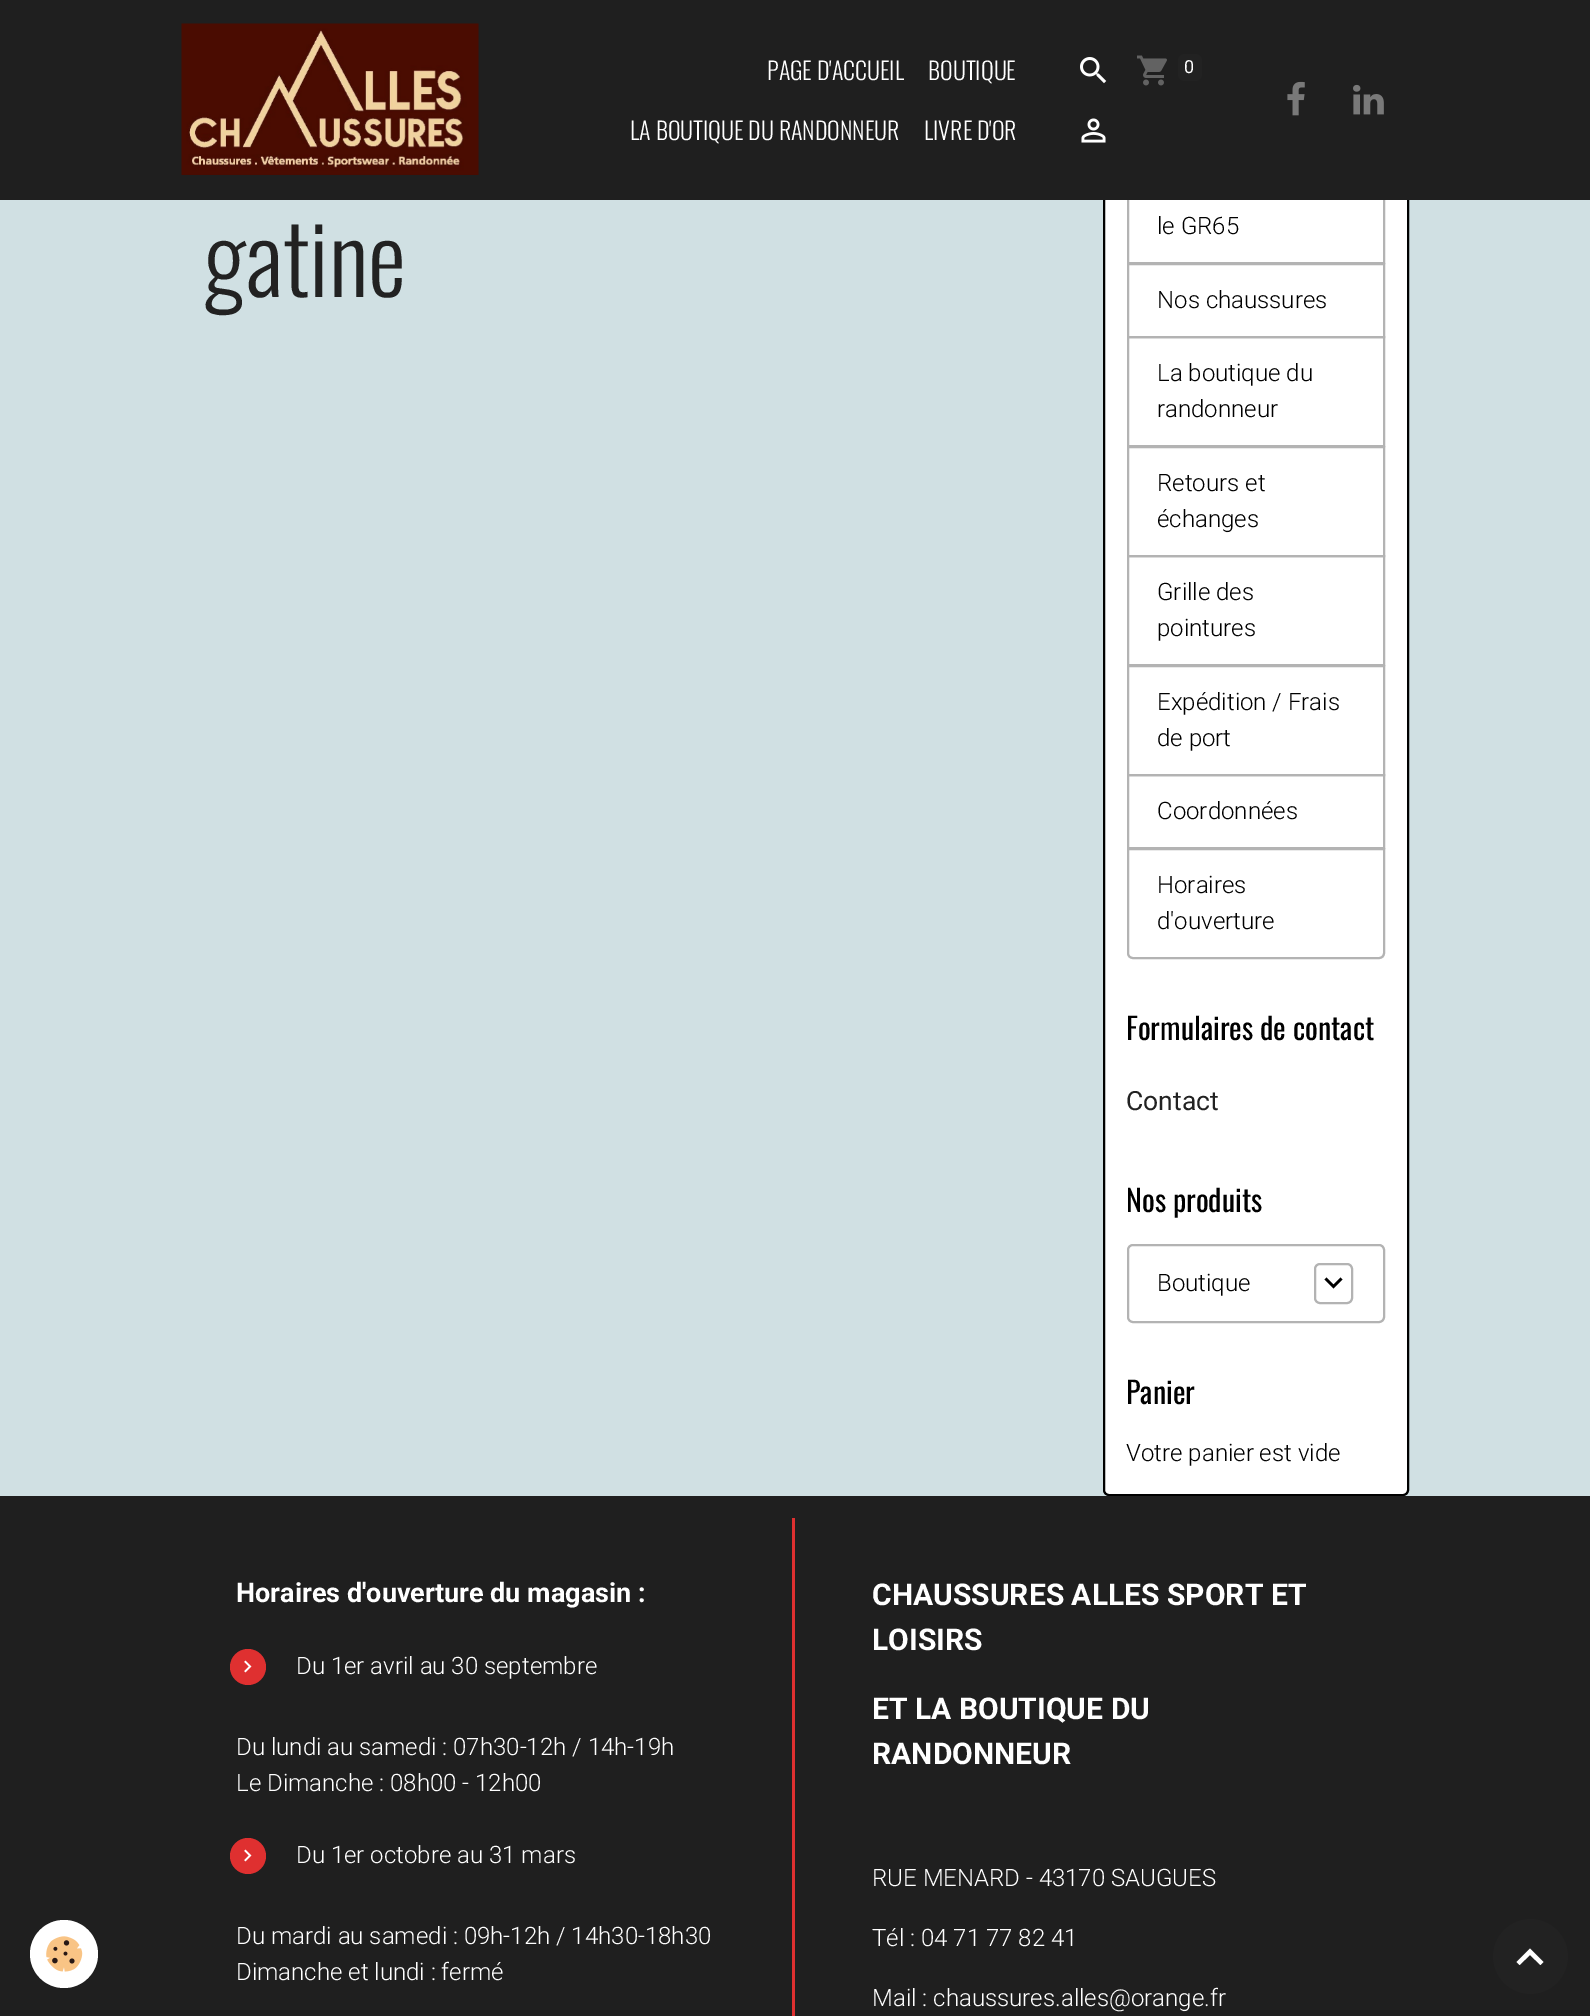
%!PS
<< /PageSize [1590 2016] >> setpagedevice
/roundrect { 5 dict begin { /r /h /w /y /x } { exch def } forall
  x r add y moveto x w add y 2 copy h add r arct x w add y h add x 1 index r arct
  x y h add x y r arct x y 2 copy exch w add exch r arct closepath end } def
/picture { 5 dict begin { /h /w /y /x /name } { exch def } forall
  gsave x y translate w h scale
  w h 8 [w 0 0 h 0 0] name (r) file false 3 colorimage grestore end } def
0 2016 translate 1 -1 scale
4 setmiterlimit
0.816 0.878 0.89 setrgbcolor
0 0 1590 2016 rectfill
1 setgray
1104 27 304 1468 5 roundrect gsave fill grestore
0 setgray
2 setlinewidth
stroke
0.702 setgray
1128 118 256 145 rectstroke
0.122 setgray
0 0 1590 200 rectfill
(img1.rgb) 181 23 298 152 picture
/Oswald-Light [24 0 0 -24 0 0] selectfont
1 setgray
767 80 moveto (PAGE D'ACCUEIL) show
928 80 moveto (BOUTIQUE) show
630 140 moveto (LA BOUTIQUE DU RANDONNEUR) show
924 140 moveto (LIVRE D'OR) show
(img2.rgb) 1080 57 27 27 picture
(img3.rgb) 1137 55 30 31 picture
0.133 setgray
1178 54 24 27 6 roundrect fill
/Roboto-Regular [18 0 0 -18 0 0] selectfont
1 setgray
1184 73 moveto (0) show
(img4.rgb) 1081 118 25 25 picture
(img5.rgb) 1287 81 18 35 picture
(img6.rgb) 1353 84 31 31 picture
/Oswald-Light [96 0 0 -96 0 0] selectfont
0.133 setgray
204 297 moveto (gatine) show
/Roboto-Light [24 0 0 -24 0 0] selectfont
0 setgray
1157 234 moveto (le GR65) show
0.702 setgray
1128 264 256 73 rectstroke
0 setgray
1157 308 moveto (Nos chaussures) show
0.702 setgray
1128 337 256 109 rectstroke
0 setgray
1157 381 moveto (La boutique du) show
1157 417 moveto (randonneur) show
0.702 setgray
1128 447 256 109 rectstroke
0 setgray
1157 491 moveto (Retours et) show
1157 527 moveto (échanges) show
0.702 setgray
1128 556 256 109 rectstroke
0 setgray
1157 600 moveto (Grille des) show
1157 636 moveto (pointures) show
0.702 setgray
1128 666 256 109 rectstroke
0 setgray
1157 710 moveto (Expédition / Frais) show
1157 746 moveto (de port) show
0.702 setgray
1128 775 256 73 rectstroke
0 setgray
1157 819 moveto (Coordonnées) show
0.702 setgray
newpath 1128 849 moveto 1384 849 lineto 1384 953 lineto 1384 956 1382 958 1379 958 curveto 1133 958 lineto 1130 958 1128 956 1128 953 curveto closepath stroke
0 setgray
1157 893 moveto (Horaires) show
1157 929 moveto (d'ouverture) show
/Oswald-Regular [30 0 0 -30 0 0] selectfont
1126 1040 moveto (Formulaires de contact) show
/Roboto-Regular [26.5 0 0 -26.5 0 0] selectfont
0.133 setgray
1126 1110 moveto (Contact) show
/Oswald-Regular [30 0 0 -30 0 0] selectfont
0 setgray
1126 1212 moveto (Nos produits) show
0.702 setgray
1128 1245 256 77 5 roundrect stroke
/Roboto-Light [24 0 0 -24 0 0] selectfont
0 setgray
1157 1291 moveto (Boutique) show
0.702 setgray
1315 1264 37 39 5 roundrect stroke
0 setgray
newpath 1340.5 1277.5 moveto 1342.5 1279.5 lineto 1333.5 1288.5 lineto 1324.5 1279.5 lineto 1326.5 1277.5 lineto 1333.5 1284.5 lineto closepath fill
/Oswald-Regular [30 0 0 -30 0 0] selectfont
1126 1404 moveto (Panier) show
/Roboto-Light [24 0 0 -24 0 0] selectfont
1126 1461 moveto (Votre panier est vide) show
0.122 setgray
0 1496 1590 520 rectfill
1 setgray
newpath 64 1954 34 0 360 arc closepath fill
(img7.rgb) 46 1936 37 36 picture
/Roboto-Bold [27 0 0 -27 0 0] selectfont
236 1602 moveto (Horaires d'ouverture du magasin :) show
0.875 0.188 0.188 setrgbcolor
newpath 248 1667 18 0 360 arc closepath fill
(img8.rgb) 244 1660 8 13 picture
/Roboto-Light [24 0 0 -24 0 0] selectfont
1 setgray
296 1674 moveto (Du 1er avril au 30 septembre) show
236 1755 moveto (Du lundi au samedi : 07h30-12h / 14h-19h) show
236 1791 moveto (Le Dimanche : 08h00 - 12h00) show
0.875 0.188 0.188 setrgbcolor
newpath 248 1856 18 0 360 arc closepath fill
(img8.rgb) 244 1849 8 13 picture
1 setgray
296 1863 moveto (Du 1er octobre au 31 mars) show
236 1944 moveto (Du mardi au samedi : 09h-12h / 14h30-18h30) show
236 1980 moveto (Dimanche et lundi : fermé) show
0.875 0.188 0.188 setrgbcolor
792 1518 3 498 rectfill
/Roboto-Bold [30 0 0 -30 0 0] selectfont
1 setgray
872 1605 moveto (CHAUSSURES ALLES SPORT ET) show
872 1650 moveto (LOISIRS) show
872 1719 moveto (ET LA BOUTIQUE DU) show
872 1764 moveto (RANDONNEUR) show
/Roboto-Light [24 0 0 -24 0 0] selectfont
872 1886 moveto (RUE MENARD - 43170 SAUGUES) show
872 1946 moveto (Tél : 04 71 77 82 41) show
872 2006 moveto (Mail : chaussures.alles@orange.fr) show
0.133 setgray
newpath 1530.5 1956.5 37.5 0 360 arc closepath fill
1 setgray
newpath 1530 1948.5 moveto 1543.5 1962 lineto 1540.5 1965 lineto 1530 1955 lineto 1519.5 1965 lineto 1516.5 1962 lineto closepath fill
showpage
